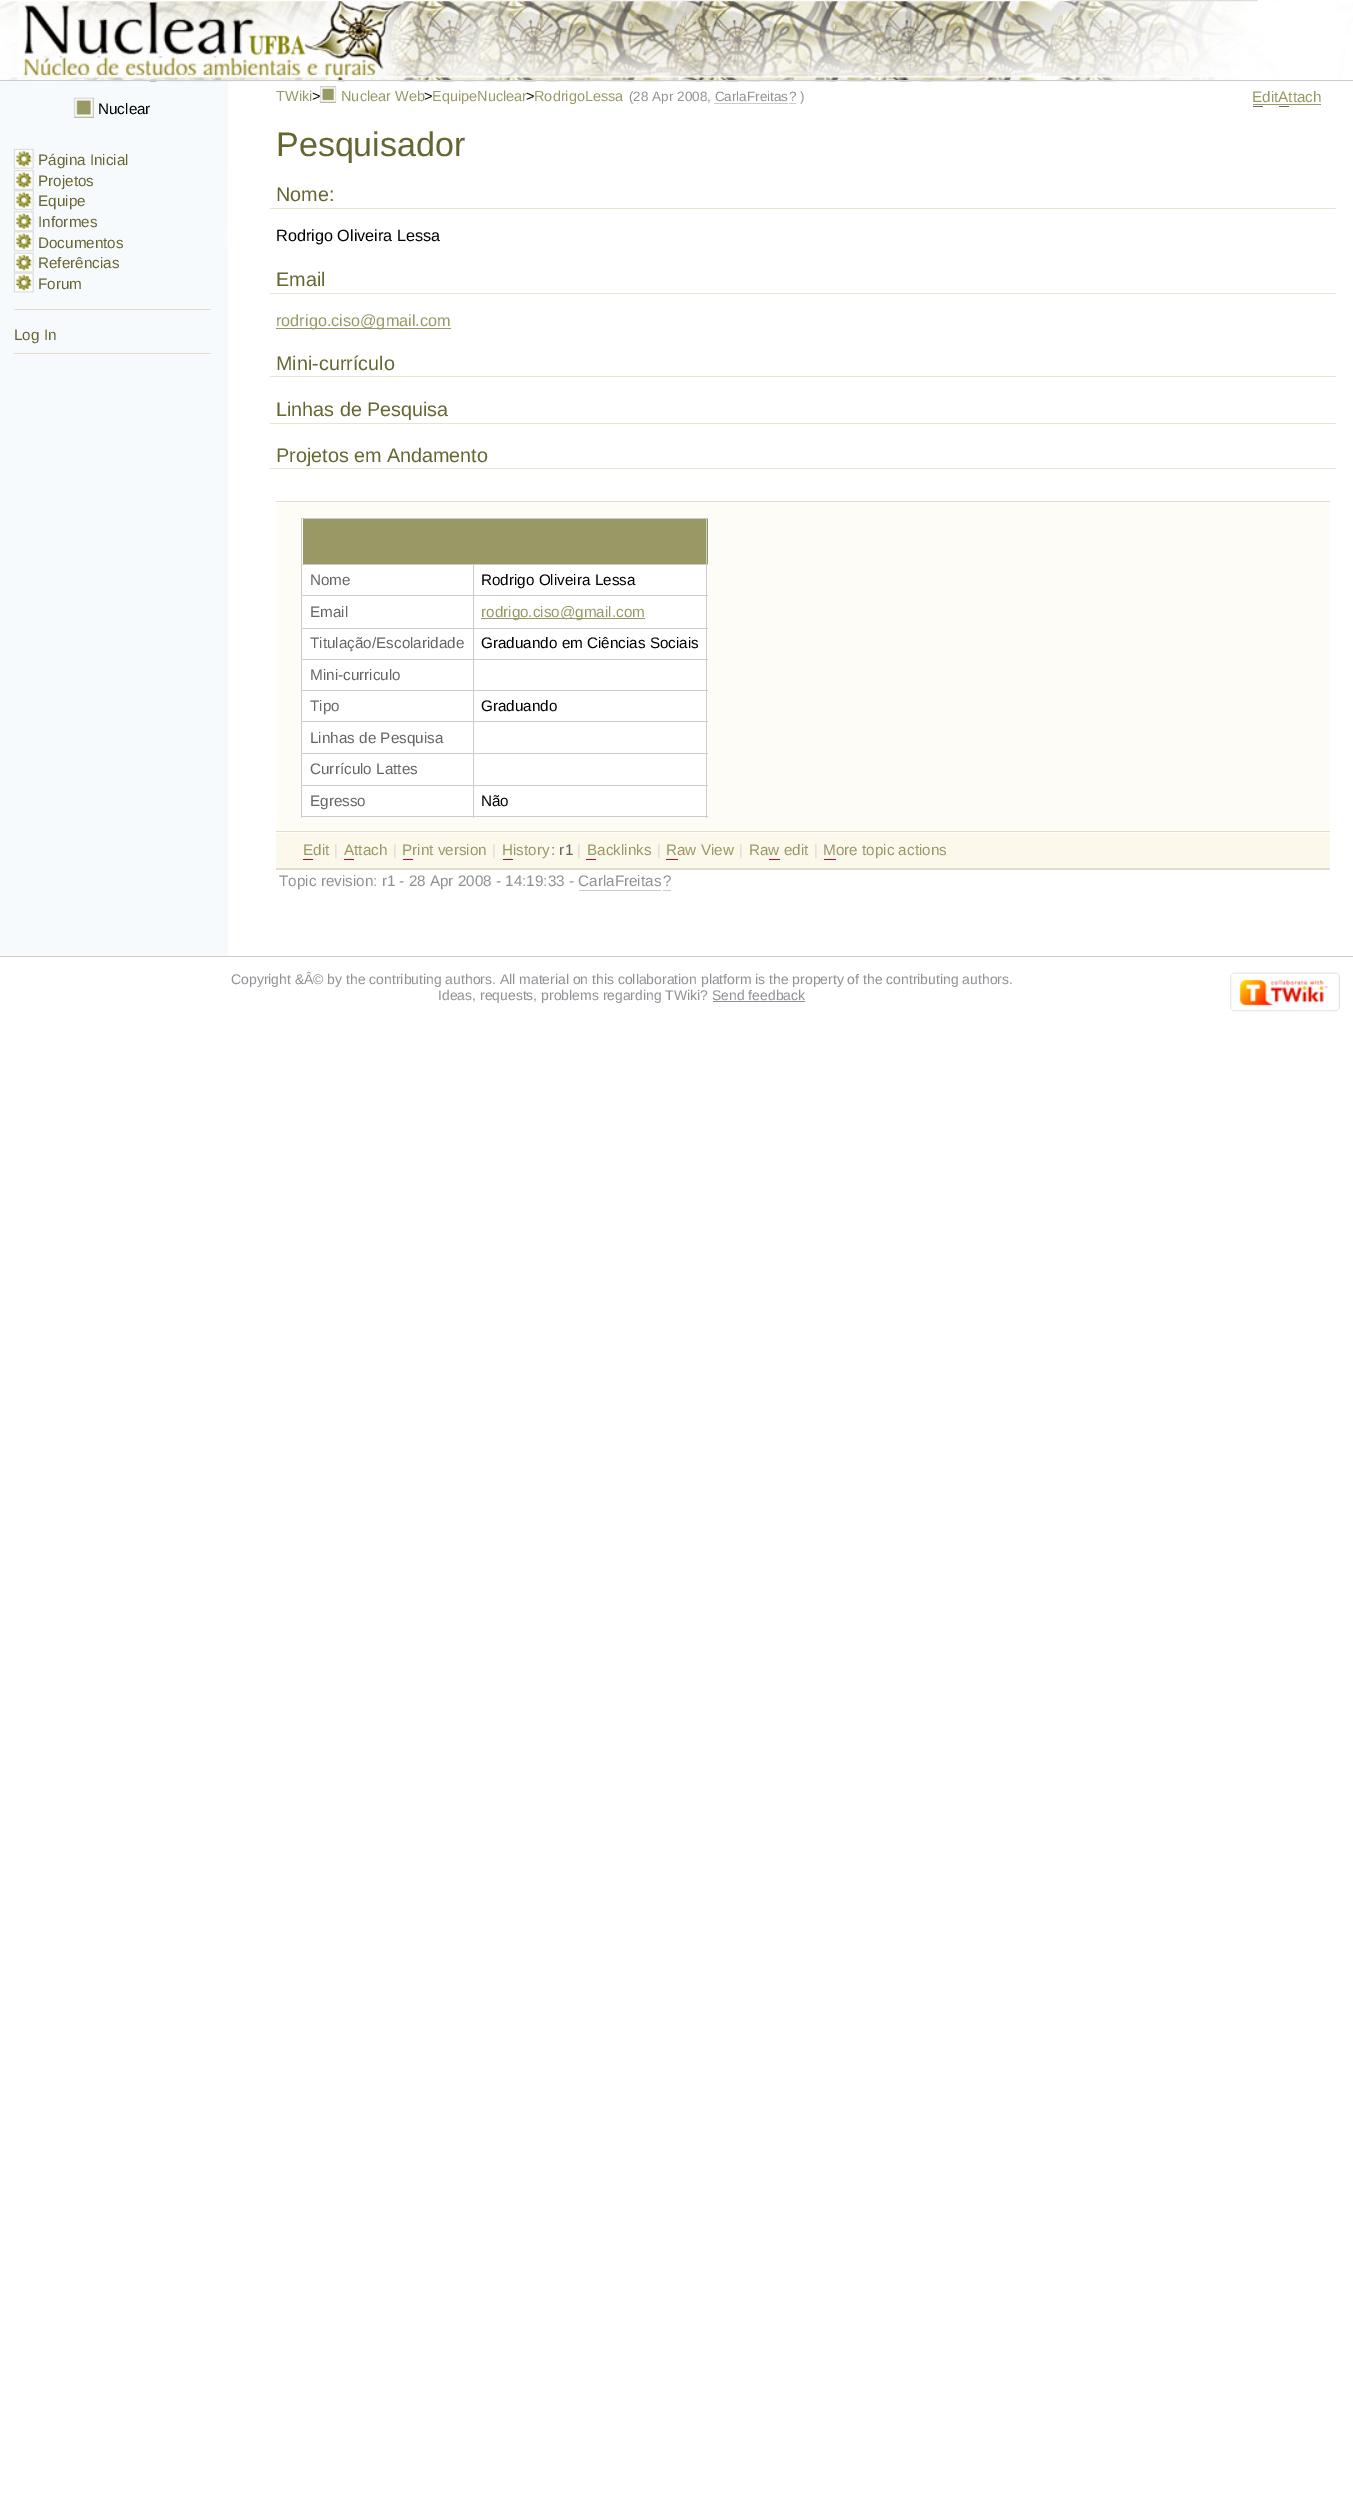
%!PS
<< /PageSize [1353 2506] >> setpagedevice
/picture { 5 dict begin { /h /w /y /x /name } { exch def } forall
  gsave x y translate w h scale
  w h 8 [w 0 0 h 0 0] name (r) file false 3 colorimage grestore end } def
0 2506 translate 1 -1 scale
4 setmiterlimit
1 setgray
0 0 1353 2506 rectfill
0.969 0.98 0.988 setrgbcolor
0 81 228 875 rectfill
(img3.rgb) 227 81 1 169 picture
(img1.rgb) 0 0 1353 82 picture
0.8 setgray
0 80 1353 1 rectfill
(img2.rgb) 4 0 1254 2 picture
0.6 0.6 0.4 setrgbcolor
74 98 20 20 rectfill
(img4.rgb) 73 97 21 21 picture
/LiberationSans-Regular [15.25 0 0 -15.25 0 0] selectfont
0 setgray
98 114 moveto (Nuclear) show
(img5.rgb) 13 148 21 21 picture
0.4 0.4 0.2 setrgbcolor
38 165 moveto (Página Inicial) show
(img6.rgb) 13 170 21 20 picture
38 186 moveto (Projetos) show
(img6.rgb) 13 190 21 20 picture
38 206 moveto (Equipe) show
(img7.rgb) 13 211 21 21 picture
38 227 moveto (Informes) show
(img8.rgb) 13 231 21 21 picture
38 248 moveto (Documentos) show
(img9.rgb) 13 252 21 21 picture
38 268 moveto (Referências) show
(img10.rgb) 13 272 21 21 picture
38 289 moveto (Forum) show
0.886 0.863 0.784 setrgbcolor
14 309 197 1 rectfill
0.4 0.4 0.2 setrgbcolor
14 340 moveto (Log In) show
0.886 0.863 0.784 setrgbcolor
14 353 197 1 rectfill
0.6 0.6 0.4 setrgbcolor
320 86 16 17 rectfill
/LiberationSans-Regular [14.5 0 0 -14.5 0 0] selectfont
276 101 moveto (TWiki) show
0 setgray
312 101 moveto (>) show
(img11.rgb) 320 86 17 17 picture
0.6 0.6 0.4 setrgbcolor
341 101 moveto (Nuclear Web) show
0 setgray
424 101 moveto (>) show
0.6 0.6 0.4 setrgbcolor
432 101 moveto (EquipeNuclear) show
0 setgray
526 101 moveto (>) show
0.6 0.6 0.4 setrgbcolor
534 101 moveto (RodrigoLessa) show
/LiberationSans-Regular [13.5 0 0 -13.5 0 0] selectfont
0.557 0.569 0.584 setrgbcolor
629 101 moveto (\(28 Apr 2008, CarlaFreitas) show
0.8 setgray
714 103 74 1 rectfill
789 103 7 1 rectfill
0.557 0.569 0.584 setrgbcolor
789 101 moveto (? \)) show
/LiberationSans-Regular [15.25 0 0 -15.25 0 0] selectfont
0.6 0.6 0.4 setrgbcolor
1252 102 moveto (EditAttach) show
0.4 setgray
1253 106 10 1 rectfill
0.6 0.6 0.4 setrgbcolor
1253 104 68 1 rectfill
0.4 setgray
1279 106 10 1 rectfill
/LiberationSans-Regular [34 0 0 -34 0 0] selectfont
0.4 0.4 0.2 setrgbcolor
276 156 moveto (Pesquisador) show
0.914 0.894 0.824 setrgbcolor
270 208 1066 1 rectfill
/LiberationSans-Regular [19.75 0 0 -19.75 0 0] selectfont
0.4 0.4 0.2 setrgbcolor
276 201 moveto (Nome:) show
/LiberationSans-Regular [16.25 0 0 -16.25 0 0] selectfont
0 setgray
276 241 moveto (Rodrigo Oliveira Lessa) show
0.914 0.894 0.824 setrgbcolor
270 293 1066 1 rectfill
/LiberationSans-Regular [19.75 0 0 -19.75 0 0] selectfont
0.4 0.4 0.2 setrgbcolor
276 286 moveto (Email) show
0.6 0.6 0.4 setrgbcolor
276 328 175 1 rectfill
/LiberationSans-Regular [16.25 0 0 -16.25 0 0] selectfont
276 326 moveto (rodrigo.ciso@gmail.com) show
0.914 0.894 0.824 setrgbcolor
270 376 1066 1 rectfill
/LiberationSans-Regular [19.75 0 0 -19.75 0 0] selectfont
0.4 0.4 0.2 setrgbcolor
276 370 moveto (Mini-currículo) show
0.914 0.894 0.824 setrgbcolor
270 423 1066 1 rectfill
0.4 0.4 0.2 setrgbcolor
276 416 moveto (Linhas de Pesquisa) show
0.914 0.894 0.824 setrgbcolor
270 468 1066 1 rectfill
0.4 0.4 0.2 setrgbcolor
276 462 moveto (Projetos em Andamento) show
0.996 0.988 0.965 setrgbcolor
276 503 1054 328 rectfill
0.886 0.863 0.784 setrgbcolor
276 501 1054 1 rectfill
1 setgray
302 519 406 299 rectfill
0.8 setgray
301 518 407 1 rectfill
0.6 0.6 0.4 setrgbcolor
303 519 405 45 rectfill
0.8 setgray
706 518 1 300 rectfill
301 816 407 1 rectfill
301 518 1 300 rectfill
473 564 235 1 rectfill
473 595 235 1 rectfill
473 628 235 1 rectfill
473 659 235 1 rectfill
473 690 235 1 rectfill
473 721 235 1 rectfill
473 753 235 1 rectfill
473 785 235 1 rectfill
473 785 1 33 rectfill
301 785 173 1 rectfill
473 753 1 33 rectfill
301 753 173 1 rectfill
473 721 1 33 rectfill
301 721 173 1 rectfill
473 690 1 33 rectfill
301 690 173 1 rectfill
473 659 1 32 rectfill
301 659 173 1 rectfill
473 628 1 32 rectfill
301 628 173 1 rectfill
473 595 1 34 rectfill
301 595 173 1 rectfill
473 564 1 32 rectfill
301 564 173 1 rectfill
/LiberationSans-Regular [15.25 0 0 -15.25 0 0] selectfont
0.4 setgray
310 585 moveto (Nome) show
0 setgray
481 585 moveto (Rodrigo Oliveira Lessa) show
0.4 setgray
310 617 moveto (Email) show
0.6 0.6 0.4 setrgbcolor
481 618 164 1 rectfill
481 617 moveto (rodrigo.ciso@gmail.com) show
0.4 setgray
310 648 moveto (Titulação/Escolaridade) show
0 setgray
481 648 moveto (Graduando em Ciências Sociais) show
0.4 setgray
310 680 moveto (Mini-curriculo) show
310 711 moveto (Tipo) show
0 setgray
481 711 moveto (Graduando) show
0.4 setgray
310 743 moveto (Linhas de Pesquisa) show
310 774 moveto (Currículo Lattes) show
310 806 moveto (Egresso) show
0 setgray
481 806 moveto (Não) show
0.886 0.863 0.784 setrgbcolor
276 868 1054 2 rectfill
0.988 0.973 0.925 setrgbcolor
276 833 1054 35 rectfill
0.886 0.863 0.784 setrgbcolor
276 831 1054 1 rectfill
0.6 0.6 0.4 setrgbcolor
303 855 moveto (Edit) show
0.839 0 0.059 setrgbcolor
303 859 10 1 rectfill
0.886 0.863 0.784 setrgbcolor
334 855 moveto (|) show
0.6 0.6 0.4 setrgbcolor
344 855 moveto (Attach) show
0.839 0 0.059 setrgbcolor
344 859 10 1 rectfill
0.886 0.863 0.784 setrgbcolor
393 855 moveto (|) show
0.6 0.6 0.4 setrgbcolor
402 855 moveto (Print version) show
0.839 0 0.059 setrgbcolor
403 859 10 1 rectfill
0.886 0.863 0.784 setrgbcolor
492 855 moveto (|) show
0.6 0.6 0.4 setrgbcolor
502 855 moveto (History) show
0.839 0 0.059 setrgbcolor
503 859 10 1 rectfill
0.4 setgray
551 855 moveto (: r1) show
0.886 0.863 0.784 setrgbcolor
577 855 moveto (|) show
0.6 0.6 0.4 setrgbcolor
587 855 moveto (Backlinks) show
0.839 0 0.059 setrgbcolor
586 859 10 1 rectfill
0.886 0.863 0.784 setrgbcolor
657 855 moveto (|) show
0.6 0.6 0.4 setrgbcolor
666 855 moveto (Raw View) show
0.839 0 0.059 setrgbcolor
666 859 12 1 rectfill
0.886 0.863 0.784 setrgbcolor
739 855 moveto (|) show
0.6 0.6 0.4 setrgbcolor
749 855 moveto (Raw edit) show
0.839 0 0.059 setrgbcolor
769 859 11 1 rectfill
0.886 0.863 0.784 setrgbcolor
814 855 moveto (|) show
0.6 0.6 0.4 setrgbcolor
823 855 moveto (More topic actions) show
0.839 0 0.059 setrgbcolor
824 859 12 1 rectfill
0.557 0.569 0.584 setrgbcolor
279 886 moveto (Topic revision: r1 - 28 Apr 2008 - 14:19:33 - CarlaFreitas) show
663 886 moveto (?) show
0.8 setgray
579 890 82 1 rectfill
663 890 8 1 rectfill
0 956 1353 1 rectfill
/LiberationSans-Regular [13.97 0 0 -13.97 0 0] selectfont
0.557 0.569 0.584 setrgbcolor
231 984 moveto (Copyright &Â© by the contributing authors. All material on this collaboration platform is the property of the contributing authors.) show
(img12.rgb) 1230 972 110 40 picture
438 1000 moveto (Ideas, requests, problems regarding TWiki? Send feedback) show
713 1001 92 1 rectfill
showpage
